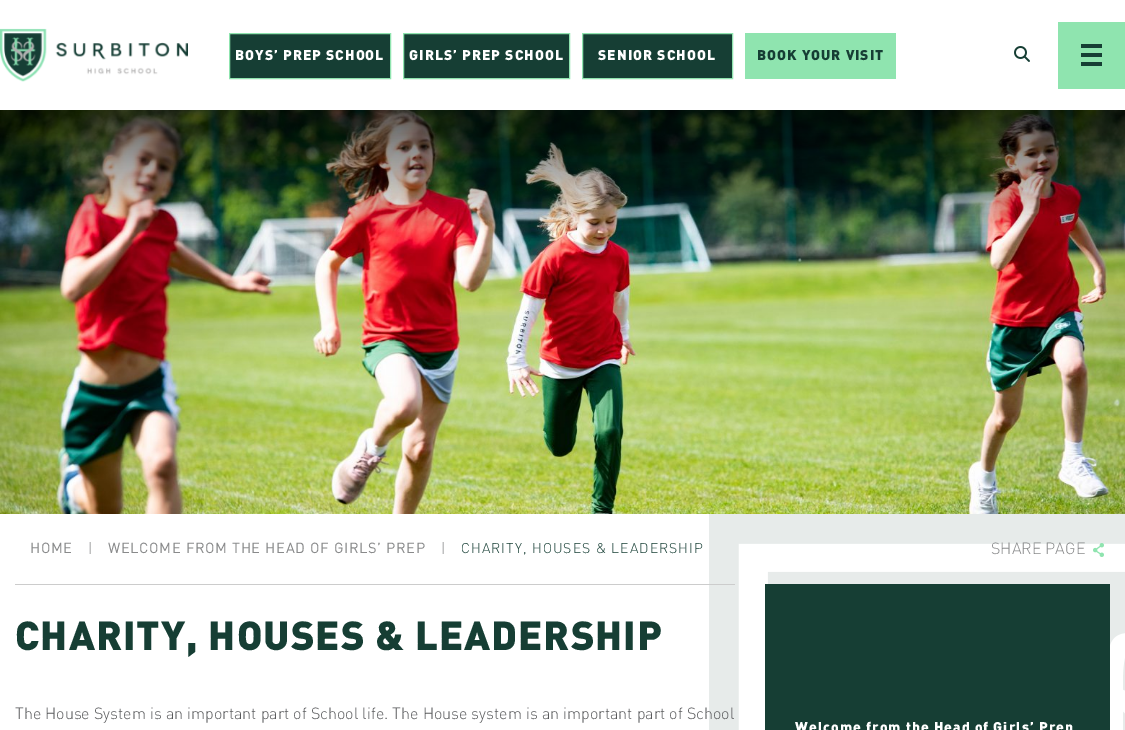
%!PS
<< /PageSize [1125 730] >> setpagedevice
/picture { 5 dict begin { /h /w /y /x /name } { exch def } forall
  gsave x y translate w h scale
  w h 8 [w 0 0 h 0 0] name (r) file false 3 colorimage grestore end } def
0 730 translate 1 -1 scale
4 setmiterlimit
1 setgray
0 0 1125 730 rectfill
(img1.rgb) 0 28 188 54 picture
0.086 0.243 0.204 setrgbcolor
newpath 229.5 33.5 moveto 390.5 33.5 lineto 390.5 78.5 lineto 229.5 78.5 lineto closepath gsave fill grestore
0.561 0.894 0.686 setrgbcolor
stroke
/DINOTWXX-Black [14 0 0 -14 0 0] selectfont
1 setgray
235 60 moveto 1 0 (BOYS’ PREP SCHOOL) ashow
0.086 0.243 0.204 setrgbcolor
newpath 403.5 33.5 moveto 569.5 33.5 lineto 569.5 78.5 lineto 403.5 78.5 lineto closepath gsave fill grestore
0.561 0.894 0.686 setrgbcolor
stroke
1 setgray
409 60 moveto 1 0 (GIRLS’ PREP SCHOOL) ashow
0.086 0.243 0.204 setrgbcolor
newpath 582.5 33.5 moveto 732.5 33.5 lineto 732.5 78.5 lineto 582.5 78.5 lineto closepath gsave fill grestore
0.561 0.894 0.686 setrgbcolor
stroke
1 setgray
598 60 moveto 1 0 (SENIOR SCHOOL) ashow
0.561 0.894 0.686 setrgbcolor
745 33 151 46 rectfill
0.086 0.243 0.204 setrgbcolor
757 60 moveto 1 0 (BOOK YOUR VISIT) ashow
(img2.rgb) 1014 46 16 16 picture
0.561 0.894 0.686 setrgbcolor
1058 22 67 67 rectfill
0.086 0.243 0.204 setrgbcolor
1081 53 21 4 rectfill
1081 44 21 4 rectfill
1081 62 21 4 rectfill
(img3.rgb) 0 110 1125 404 picture
(img4.rgb) 709 514 416 216 picture
0.8 setgray
15 584 720 1 rectfill
/DINOTWXX-Bold [14 0 0 -14 0 0] selectfont
0.537 0.541 0.545 setrgbcolor
30 553 moveto 1 0 (HOME) ashow
/DINOTWXX-Light [14 0 0 -14 0 0] selectfont
88 553 moveto 1 0 (|) ashow
/DINOTWXX-Bold [14 0 0 -14 0 0] selectfont
108 553 moveto 1 0 (WELCOME FROM THE HEAD OF GIRLS’ PREP) ashow
/DINOTWXX-Light [14 0 0 -14 0 0] selectfont
441 553 moveto 1 0 (|) ashow
0.086 0.243 0.204 setrgbcolor
461 553 moveto 1 0 (CHARITY, HOUSES & LEADERSHIP) ashow
/DINOTWXX-Black [40 0 0 -40 0 0] selectfont
15 650 moveto 1 0 (CHARITY, HOUSES & LEADERSHIP) ashow
/DINOTWXX-Light [16 0 0 -16 0 0] selectfont
0.345 0.349 0.357 setrgbcolor
15 719 moveto (The House System is an important part of School life. The House system is an important part of School) show
(img5.rgb) 1093 543 11 14 picture
0.537 0.541 0.545 setrgbcolor
991 554 moveto (SHARE PAGE) show
0.086 0.243 0.204 setrgbcolor
765 584 345 146 rectfill
/DINOTWXX-Black [14 0 0 -14 0 0] selectfont
1 setgray
795 732 moveto 1 0 (Welcome from the Head of Girls’ Prep) ashow
showpage
